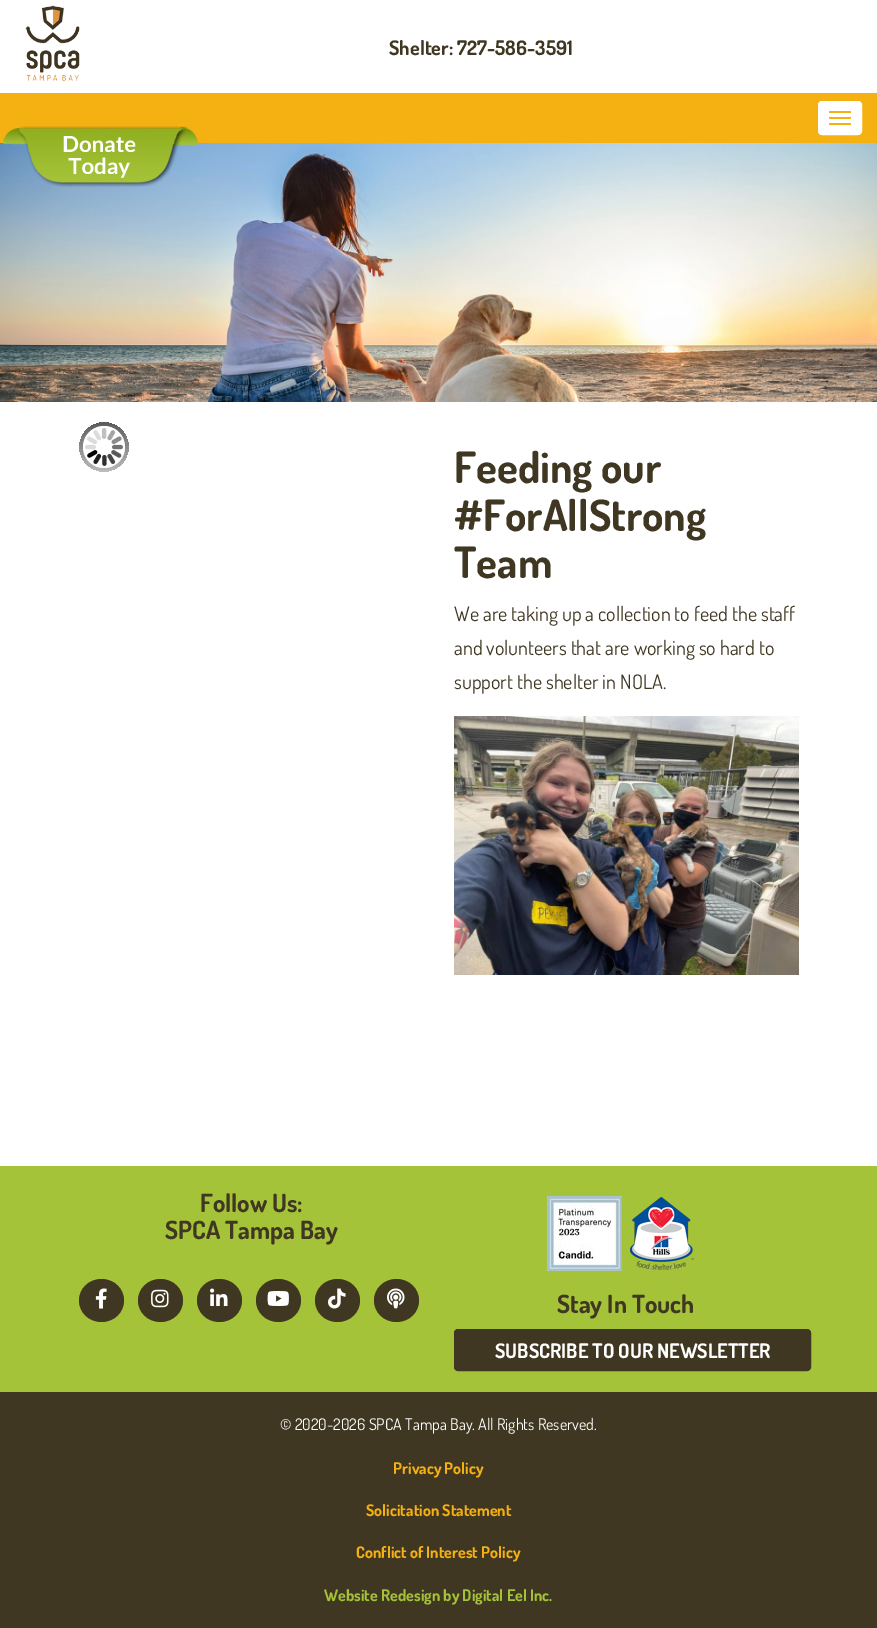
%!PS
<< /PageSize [877 1628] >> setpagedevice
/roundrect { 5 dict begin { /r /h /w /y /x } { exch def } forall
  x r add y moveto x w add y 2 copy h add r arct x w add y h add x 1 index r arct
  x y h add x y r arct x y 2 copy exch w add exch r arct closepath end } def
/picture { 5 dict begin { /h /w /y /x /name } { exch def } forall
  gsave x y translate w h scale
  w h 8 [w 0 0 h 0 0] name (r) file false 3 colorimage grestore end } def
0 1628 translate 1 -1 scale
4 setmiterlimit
1 setgray
0 0 877 1628 rectfill
(img1.rgb) 25 5 55 76 picture
/Dosis-Bold [20 0 0 -20 0 0] selectfont
0.251 0.216 0.137 setrgbcolor
389 55 moveto (Shelter: 727-586-3591) show
0.961 0.694 0.067 setrgbcolor
0 93 877 50 rectfill
1 setgray
818.5 101.5 43 33 3.5 roundrect gsave fill grestore
stroke
0.961 0.694 0.067 setrgbcolor
829 111 22 2 1 roundrect fill
829 117 22 2 1 roundrect fill
829 123 22 2 1 roundrect fill
(img3.rgb) 0 143 877 259 picture
(img2.rgb) 3 126 195 61 picture
(img4.rgb) 79 422 50 50 picture
/Dosis-Bold [43 0 0 -43 0 0] selectfont
0.251 0.216 0.137 setrgbcolor
454 483 moveto (Feeding our) show
454 531 moveto (#ForAllStrong) show
454 578 moveto (Team) show
/Dosis-Regular [20 0 0 -20 0 0] selectfont
454 621 moveto (We are taking up a collection to feed the staff) show
454 655 moveto (and volunteers that are working so hard to) show
454 689 moveto (support the shelter in NOLA.) show
(img5.rgb) 454 716 345 259 picture
0.647 0.765 0.224 setrgbcolor
0 1166 877 226 rectfill
/Dosis-Bold [25 0 0 -25 0 0] selectfont
0.251 0.216 0.137 setrgbcolor
200 1212 moveto (Follow Us:) show
165 1239 moveto (SPCA Tampa Bay) show
newpath 101.5 1279 moveto 114 1279 124 1288.5 124 1300.5 curveto 124 1312.5 114 1322 101.5 1322 curveto 89 1322 79 1312.5 79 1300.5 curveto 79 1288.5 89 1279 101.5 1279 curveto closepath fill
(img6.rgb) 95 1288 12 21 picture
newpath 160.5 1279 moveto 173 1279 183 1288.5 183 1300.5 curveto 183 1312.5 173 1322 160.5 1322 curveto 148 1322 138 1312.5 138 1300.5 curveto 138 1288.5 148 1279 160.5 1279 curveto closepath fill
(img7.rgb) 151 1289 18 19 picture
newpath 219.5 1279 moveto 232 1279 242 1288.5 242 1300.5 curveto 242 1312.5 232 1322 219.5 1322 curveto 207 1322 197 1312.5 197 1300.5 curveto 197 1288.5 207 1279 219.5 1279 curveto closepath fill
(img8.rgb) 210 1288 18 18 picture
newpath 278.5 1279 moveto 291 1279 301 1288.5 301 1300.5 curveto 301 1312.5 291 1322 278.5 1322 curveto 266 1322 256 1312.5 256 1300.5 curveto 256 1288.5 266 1279 278.5 1279 curveto closepath fill
(img9.rgb) 267 1291 22 15 picture
newpath 337.5 1279 moveto 350 1279 360 1288.5 360 1300.5 curveto 360 1312.5 350 1322 337.5 1322 curveto 325 1322 315 1312.5 315 1300.5 curveto 315 1288.5 325 1279 337.5 1279 curveto closepath fill
(img10.rgb) 328 1288 18 21 picture
newpath 396.5 1279 moveto 409 1279 419 1288.5 419 1300.5 curveto 419 1312.5 409 1322 396.5 1322 curveto 384 1322 374 1312.5 374 1300.5 curveto 374 1288.5 384 1279 396.5 1279 curveto closepath fill
(img11.rgb) 387 1288 18 21 picture
(img12.rgb) 547 1196 75 75 picture
(img13.rgb) 630 1197 64 73 picture
557 1313 moveto (Stay In Touch) show
454.5 1329.5 356 41 3.5 roundrect gsave fill grestore
stroke
/Dosis-Bold [20 0 0 -20 0 0] selectfont
1 setgray
495 1358 moveto (SUBSCRIBE TO OUR NEWSLETTER) show
0.251 0.216 0.137 setrgbcolor
0 1392 877 236 rectfill
/Dosis-Regular [16 0 0 -16 0 0] selectfont
1 setgray
280 1430 moveto (© 2020-2026 SPCA Tampa Bay. All Rights Reserved.) show
/Dosis-Bold [16 0 0 -16 0 0] selectfont
0.961 0.694 0.067 setrgbcolor
393 1474 moveto (Privacy Policy) show
366 1516 moveto (Solicitation Statement) show
356 1558 moveto (Conflict of Interest Policy) show
0.647 0.765 0.224 setrgbcolor
324 1601 moveto (Website Redesign by Digital Eel Inc.) show
showpage
